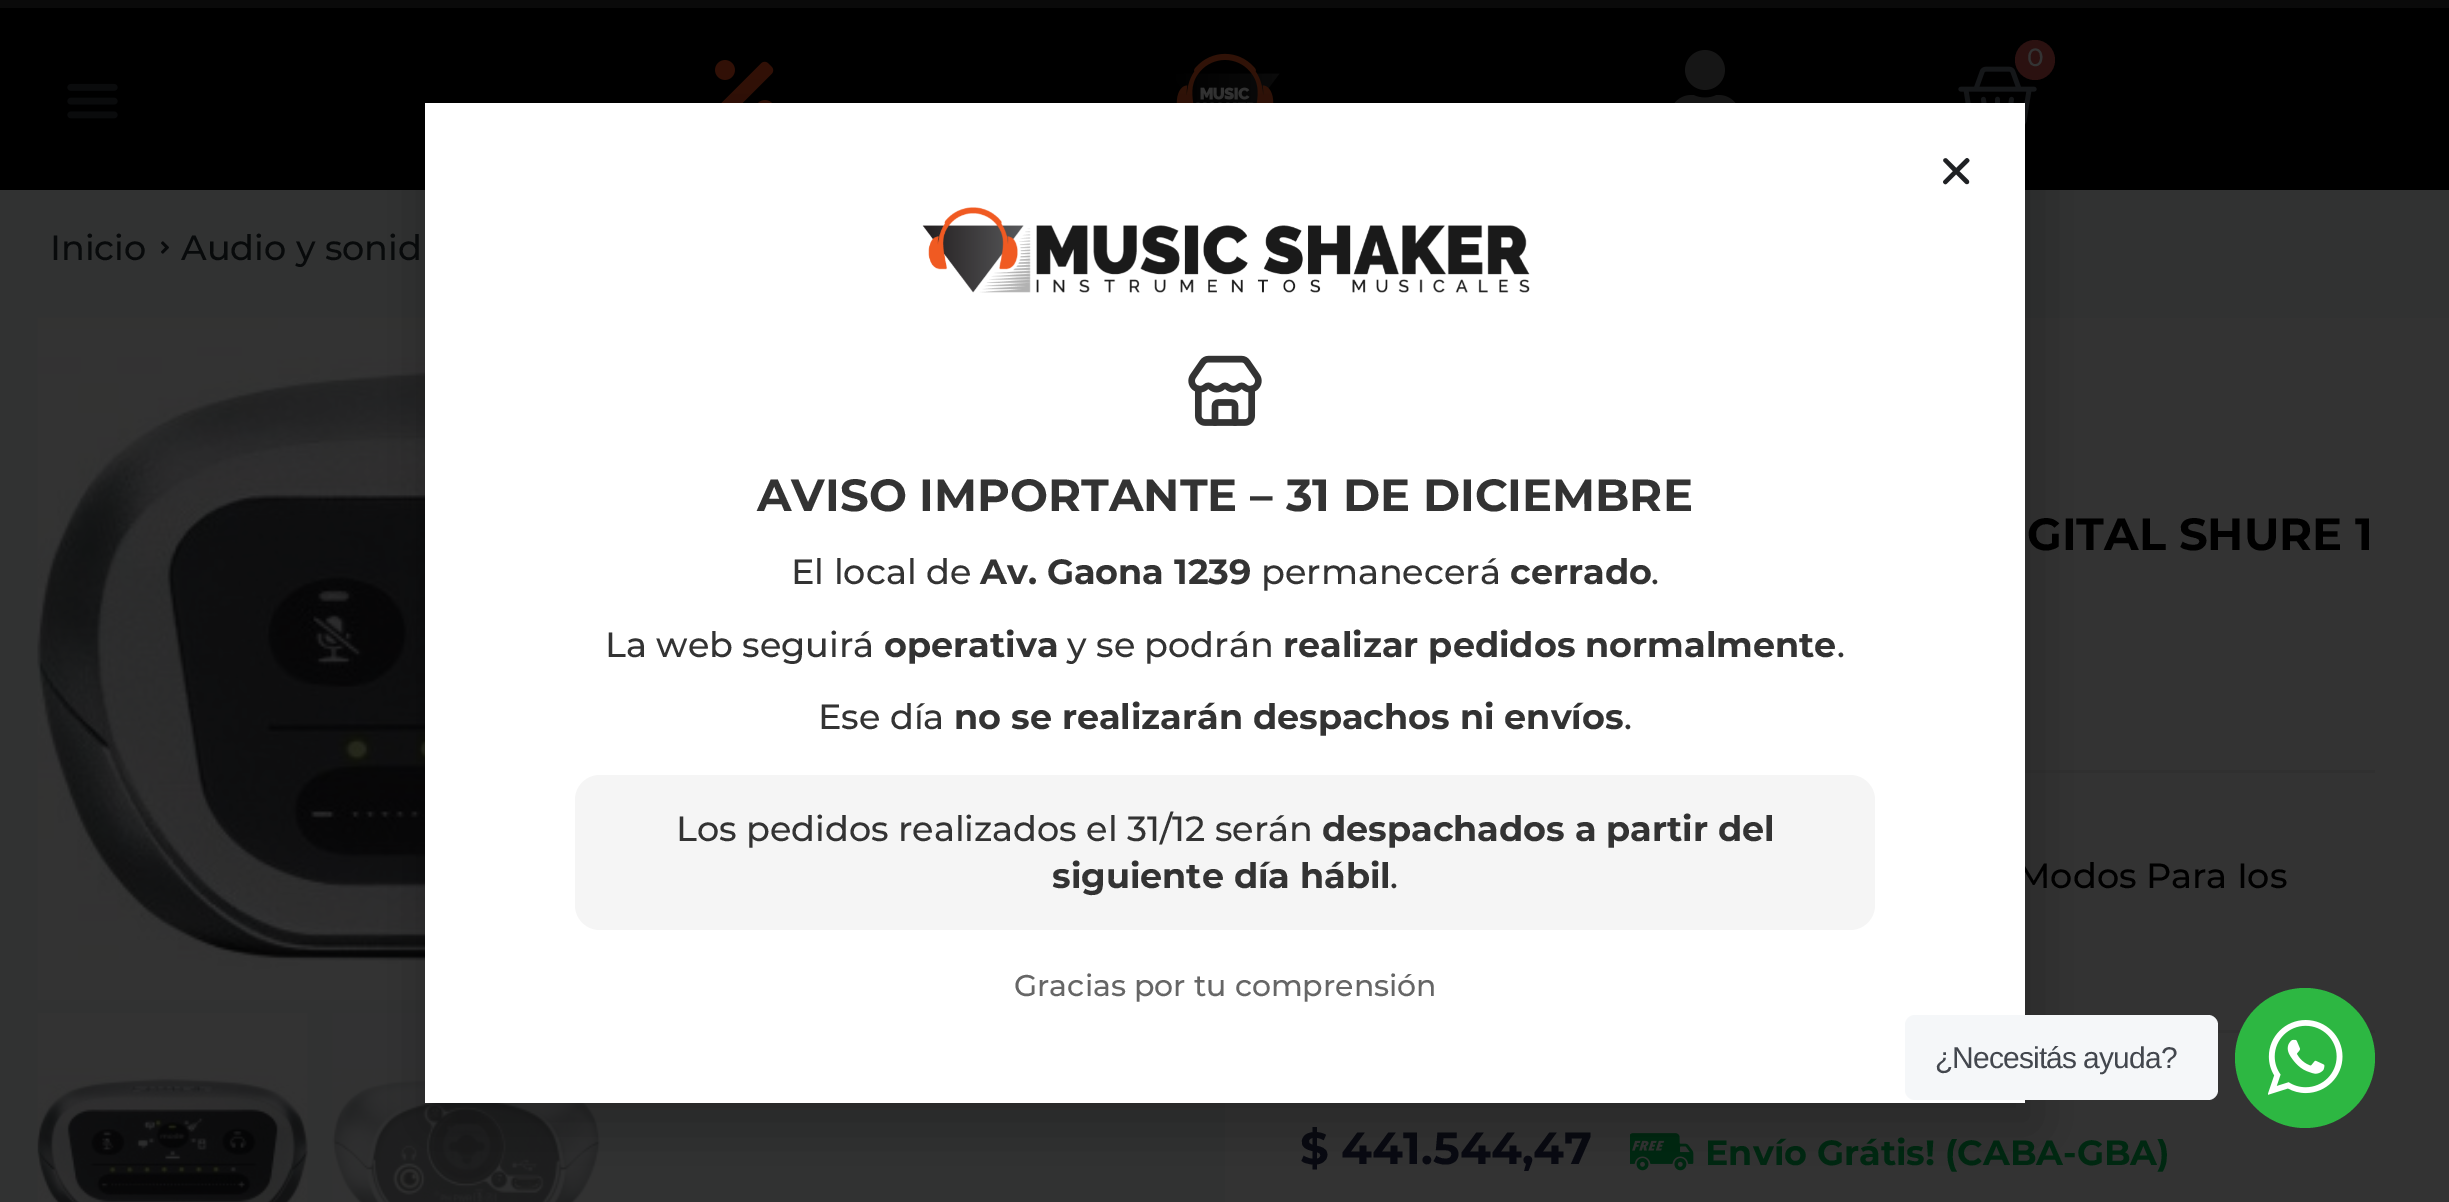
%!PS
<< /PageSize [2449 1202] /PageUsesTransparency true >> setpagedevice
/alpha { dup .setfillconstantalpha .setstrokeconstantalpha } def
/roundrect { 5 dict begin { /r /h /w /y /x } { exch def } forall
  x r add y moveto x w add y 2 copy h add r arct x w add y h add x 1 index r arct
  x y h add x y r arct x y 2 copy exch w add exch r arct closepath end } def
/shadow { 12 dict begin { /a /b /q /h /w /y /x } { exch def } forall gsave /was 0 def
  9 -2 -9 { dup b mul 4 div /e exch def 1 sub .425 mul 2.718 exch exp 1 add a .99 .min exch div /now exch def
    1 1 now sub 1 was sub div sub alpha /was now def
    w h .min e 2 mul add 0 gt { x e sub y e sub w e 2 mul add h e 2 mul add
      q e add b .6 mul add w h .min 2 div e add .min 0 .max roundrect fill } if } for grestore end } def
/picture { 5 dict begin { /h /w /y /x /name } { exch def } forall
  gsave x y translate w h scale
  w h 8 [w 0 0 h 0 0] name (r) file false 3 colorimage grestore end } def
0 .pushpdf14devicefilter
0 1202 translate 1 -1 scale
4 setmiterlimit
0 setgray
0 0 2449 1202 rectfill
0.039 setgray
0 0 2449 8 rectfill
(img1.rgb) 67 83 51 36 picture
(img2.rgb) 715 60 59 43 picture
(img3.rgb) 1176 53 104 50 picture
(img4.rgb) 1674 50 62 53 picture
(img5.rgb) 1958 66 79 59 picture
0.169 0.067 0.063 setrgbcolor
newpath 2035 60 20 0 360 arc closepath fill
/Montserrat-Medium [25 0 0 -25 0 0] selectfont
0.2 setgray
2027 66 moveto (0) show
0.192 0.196 0.196 setrgbcolor
0 190 2449 128 rectfill
/Montserrat-Medium [35 0 0 -35 0 0] selectfont
0.031 0.039 0.043 setrgbcolor
50 260 moveto (Inicio) show
(img6.rgb) 161 241 8 13 picture
181 260 moveto (Audio y sonid) show
0.192 0.196 0.196 setrgbcolor
0 318 1225 884 rectfill
(img7.rgb) 37 317 388 683 picture
(img8.rgb) 37 1013 271 189 picture
(img9.rgb) 332 1013 268 189 picture
0.2 setgray
1225 318 1224 884 rectfill
/Montserrat-Bold [45 0 0 -45 0 0] selectfont
0 setgray
2027 550 moveto (GITAL SHURE 1) show
0.188 setgray
2025 770 350 3 rectfill
/Montserrat-Medium [35 0 0 -35 0 0] selectfont
0 setgray
2017 888 moveto (Modos Para Ios) show
0.188 setgray
2218 1030 157 3 rectfill
/Montserrat-Bold [45 0 0 -45 0 0] selectfont
0.031 0.035 0.067 setrgbcolor
1300 1164 moveto ($ 441.544,47) show
(img10.rgb) 1630 1133 64 38 picture
/Montserrat-Bold [35 0 0 -35 0 0] selectfont
0 0.157 0.067 setrgbcolor
1705 1165 moveto (Envío Grátis! \(CABA-GBA\)) show
0 setgray
423 115 1615 1015 0 29 0.2 shadow
1 setgray
425 103 1600 1000 rectfill
(img11.rgb) 1943 158 27 27 picture
(img12.rgb) 922 207 608 86 picture
(img13.rgb) 1188 355 74 71 picture
/Montserrat-Bold [45 0 0 -45 0 0] selectfont
0.2 setgray
757 511 moveto (AVISO IMPORTANTE – 31 DE DICIEMBRE) show
/Montserrat-Medium [35 0 0 -35 0 0] selectfont
791 584 moveto (El local de) show
/Montserrat-Bold [35 0 0 -35 0 0] selectfont
980 584 moveto (Av. Gaona 1239) show
/Montserrat-Medium [35 0 0 -35 0 0] selectfont
1261 584 moveto (permanecerá) show
/Montserrat-Bold [35 0 0 -35 0 0] selectfont
1510 584 moveto (cerrado) show
/Montserrat-Medium [35 0 0 -35 0 0] selectfont
1651 584 moveto (.) show
605 657 moveto (La web seguirá) show
/Montserrat-Bold [35 0 0 -35 0 0] selectfont
884 657 moveto (operativa) show
/Montserrat-Medium [35 0 0 -35 0 0] selectfont
1067 657 moveto (y se podrán) show
/Montserrat-Bold [35 0 0 -35 0 0] selectfont
1283 657 moveto (realizar pedidos normalmente) show
/Montserrat-Medium [35 0 0 -35 0 0] selectfont
1837 657 moveto (.) show
818 729 moveto (Ese día) show
/Montserrat-Bold [35 0 0 -35 0 0] selectfont
954 729 moveto (no se realizarán despachos ni envíos) show
/Montserrat-Medium [35 0 0 -35 0 0] selectfont
1624 729 moveto (.) show
0.961 setgray
575 775 1300 155 25 roundrect fill
0.2 setgray
676 841 moveto (Los pedidos realizados el 31/12 serán) show
/Montserrat-Bold [35 0 0 -35 0 0] selectfont
1322 841 moveto (despachados a partir del) show
1052 888 moveto (siguiente día hábil) show
/Montserrat-Medium [35 0 0 -35 0 0] selectfont
1390 888 moveto (.) show
/Montserrat-Medium [30 0 0 -30 0 0] selectfont
0.4 setgray
1014 996 moveto (Gracias por tu comprensión) show
0.961 0.969 0.976 setrgbcolor
1905 1015 313 85 10 roundrect fill
/LiberationSans-Regular [30 0 0 -30 0 0] selectfont
0.263 0.278 0.306 setrgbcolor
1935 1068 moveto -0.9 0 (¿Necesitás ayuda?) ashow
0.176 0.718 0.259 setrgbcolor
newpath 2305 1058 70 0 360 arc closepath fill
(img14.rgb) 2268 1020 75 75 picture
.poppdf14devicefilter showpage
